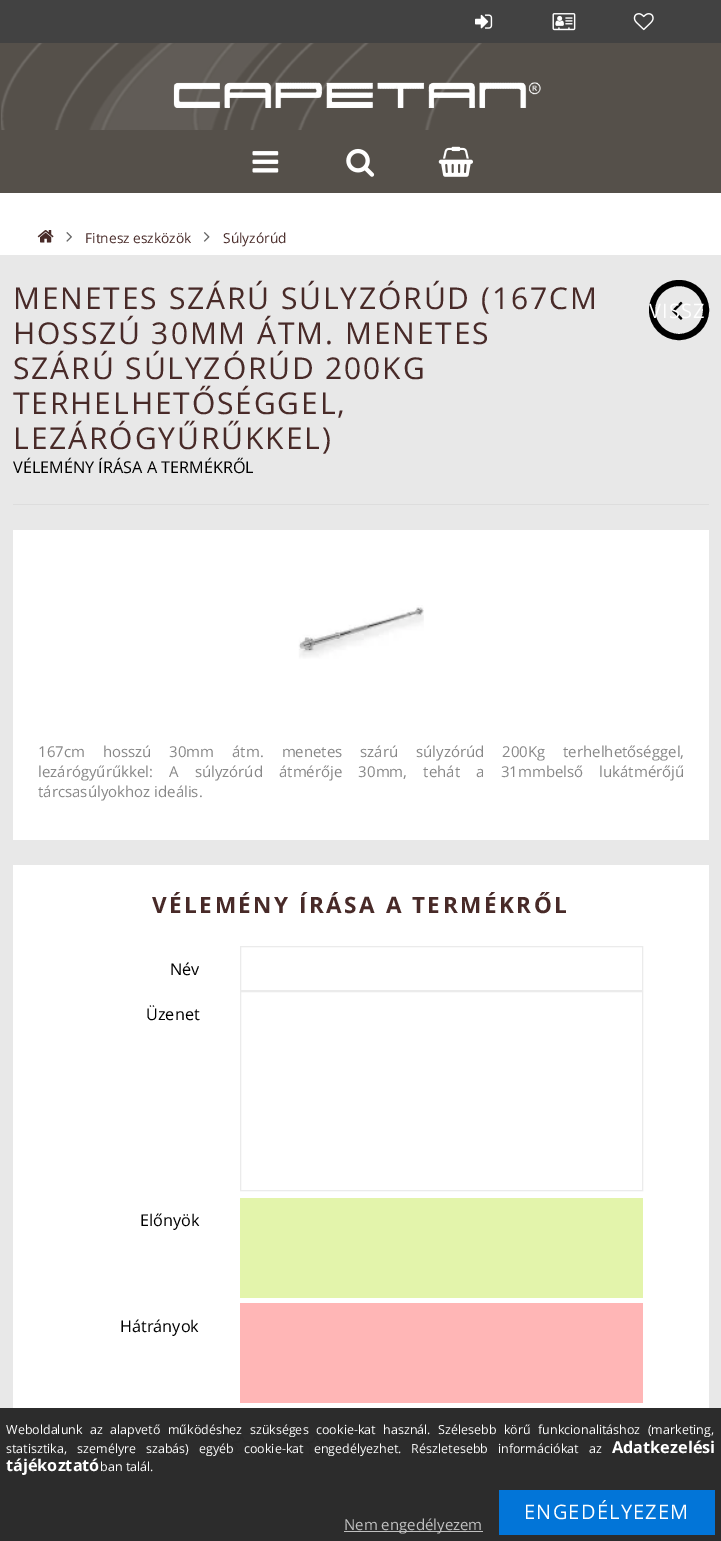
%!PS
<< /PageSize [721 1541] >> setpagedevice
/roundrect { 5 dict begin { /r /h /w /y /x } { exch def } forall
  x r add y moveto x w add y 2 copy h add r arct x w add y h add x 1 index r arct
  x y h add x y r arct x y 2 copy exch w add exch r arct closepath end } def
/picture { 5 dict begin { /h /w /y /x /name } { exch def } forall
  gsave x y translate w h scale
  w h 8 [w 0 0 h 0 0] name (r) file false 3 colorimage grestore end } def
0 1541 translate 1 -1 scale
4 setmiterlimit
1 setgray
0 0 721 1541 rectfill
0.333 0.314 0.29 setrgbcolor
0 43 721 150 rectfill
(img1.rgb) 1 43 481 87 picture
0.259 setgray
0 0 721 43 rectfill
(img2.rgb) 475 14 18 15 picture
(img3.rgb) 552 13 24 18 picture
(img4.rgb) 633 13 21 18 picture
(img5.rgb) 173 82 368 27 picture
(img6.rgb) 252 151 27 22 picture
(img7.rgb) 346 148 29 29 picture
(img8.rgb) 438 146 35 31 picture
0.91 setgray
0 255 721 1153 rectfill
0.173 setgray
0 1408 721 133 rectfill
(img9.rgb) 37 230 17 13 picture
(img10.rgb) 66 232 6 10 picture
/OpenSans-Regular [13.75 0 0 -13.75 0 0] selectfont
0.282 0.165 0.157 setrgbcolor
85 243 moveto (Fitnesz eszközök) show
(img11.rgb) 203 232 7 10 picture
223 243 moveto (Súlyzórúd) show
/OpenSans-Regular [30 0 0 -30 0 0] selectfont
13 309 moveto 1.9 0 (MENETES SZÁRÚ SÚLYZÓRÚD \(167CM) ashow
13 344 moveto 1.9 0 (HOSSZÚ 30MM ÁTM. MENETES) ashow
13 379 moveto 1.9 0 (SZÁRÚ SÚLYZÓRÚD 200KG) ashow
13 414 moveto 1.9 0 (TERHELHETŐSÉGGEL,) ashow
13 449 moveto 1.9 0 (LEZÁRÓGYŰRŰKKEL\)) ashow
/OpenSans-Regular [16.25 0 0 -16.25 0 0] selectfont
0 setgray
13 473 moveto (VÉLEMÉNY ÍRÁSA A TERMÉKRŐL) show
6 setlinewidth
newpath 679 310 27 0 360 arc closepath stroke
(img12.rgb) 671 301 12 19 picture
gsave
649 280 60 60 30 roundrect clip newpath
/OpenSans-Regular [20 0 0 -20 0 0] selectfont
1 setgray
649 318 moveto 1.25 0 (VISSZ) ashow
grestore
0.867 setgray
13 504 696 1 rectfill
1 setgray
13 530 696 310 rectfill
(img13.rgb) 298 605 126 54 picture
/OpenSans-Regular [15 0 0 -15 0 0] selectfont
0.533 setgray
38 757 moveto 14 0 32 (167cm hosszú 30mm átm. menetes szárú súlyzórúd 200Kg terhelhetőséggel,) widthshow
38 777 moveto 12.25 0 32 (lezárógyűrűkkel: A súlyzórúd átmérője 30mm, tehát a 31mmbelső lukátmérőjű) widthshow
38 797 moveto (tárcsasúlyokhoz ideális.) show
1 setgray
13 865 696 543 rectfill
/OpenSans-Bold [22.5 0 0 -22.5 0 0] selectfont
0.282 0.165 0.157 setrgbcolor
152 913 moveto 2.5 0 (VÉLEMÉNY ÍRÁSA A TERMÉKRŐL) ashow
/OpenSans-Regular [16.25 0 0 -16.25 0 0] selectfont
0 setgray
170 975 moveto (Név) show
0.922 setgray
1 setlinewidth
240.5 946.5 402 44 rectstroke
0 setgray
146 1020 moveto (Üzenet) show
0.922 setgray
240.5 991.5 402 199 rectstroke
0 setgray
140 1226 moveto (Előnyök) show
0.89 0.957 0.671 setrgbcolor
240 1198 403 100 rectfill
0 setgray
120 1332 moveto (Hátrányok) show
1 0.714 0.714 setrgbcolor
240 1303 403 100 rectfill
(img14.rgb) 231 1435 21 20 picture
(img14.rgb) 256 1435 21 20 picture
(img14.rgb) 281 1435 21 20 picture
(img15.rgb) 305 1435 21 20 picture
(img15.rgb) 330 1435 21 20 picture
/OpenSans-Regular [12.5 0 0 -12.5 0 0] selectfont
1 setgray
6 1434 moveto 4.25 0 32 (Weboldalunk az alapvető működéshez szükséges cookie-kat használ. Szélesebb körű funkcionalitáshoz \(marketing,) widthshow
6 1453 moveto 6.75 0 32 (statisztika, személyre szabás\) egyéb cookie-kat engedélyezhet. Részletesebb információkat az) widthshow
/OpenSans-Bold [16.25 0 0 -16.25 0 0] selectfont
612 1453 moveto (Adatkezelési) show
6 1471 moveto (tájékoztató) show
/OpenSans-Regular [12.5 0 0 -12.5 0 0] selectfont
100 1471 moveto (ban talál.) show
0.008 0.459 0.847 setrgbcolor
499 1490 216 45 rectfill
/OpenSans-Regular [20 0 0 -20 0 0] selectfont
1 setgray
524 1519 moveto 1.25 0 (ENGEDÉLYEZEM) ashow
0.753 setgray
344 1531 139 1 rectfill
/OpenSans-Regular [15 0 0 -15 0 0] selectfont
344 1530 moveto (Nem engedélyezem) show
showpage
